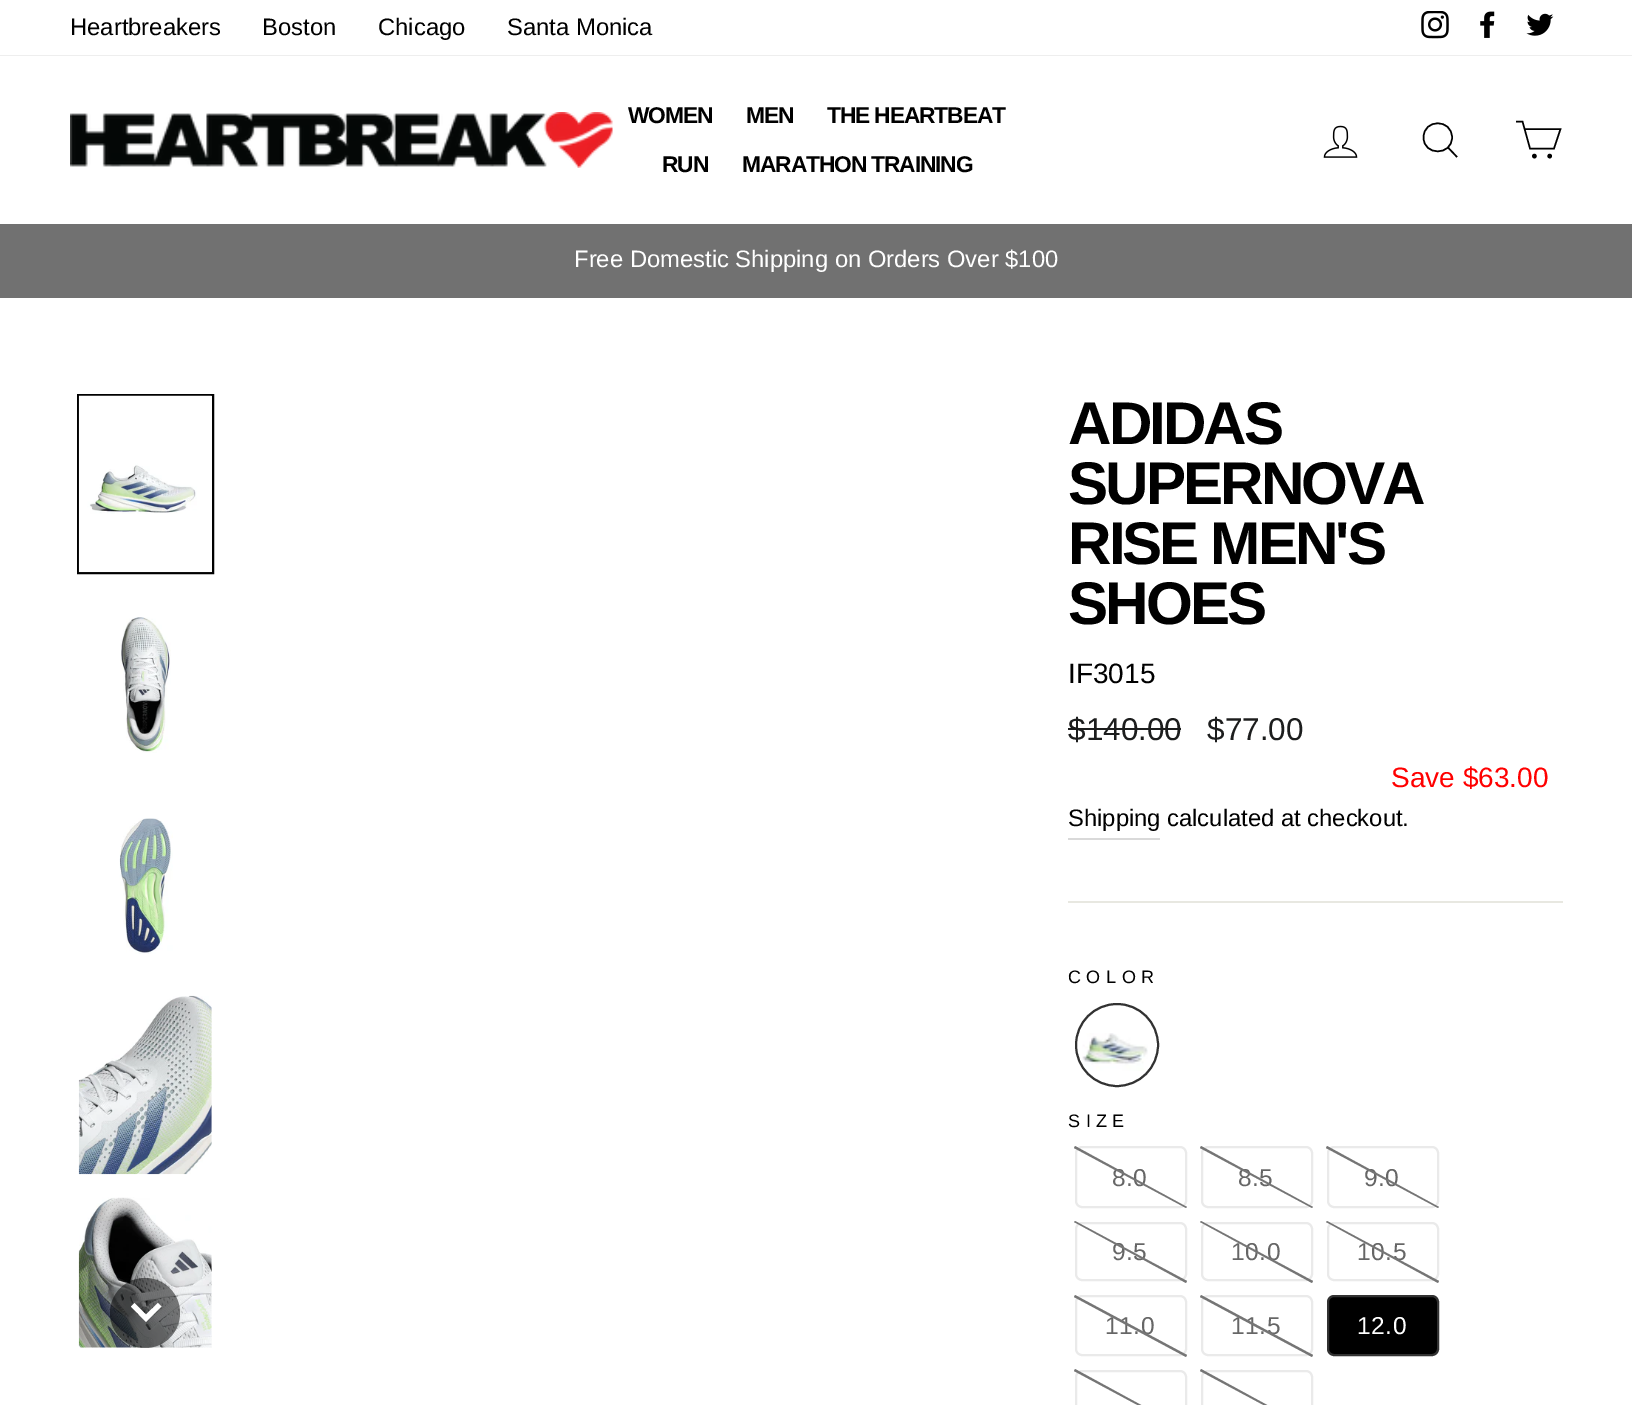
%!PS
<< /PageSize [1632 1405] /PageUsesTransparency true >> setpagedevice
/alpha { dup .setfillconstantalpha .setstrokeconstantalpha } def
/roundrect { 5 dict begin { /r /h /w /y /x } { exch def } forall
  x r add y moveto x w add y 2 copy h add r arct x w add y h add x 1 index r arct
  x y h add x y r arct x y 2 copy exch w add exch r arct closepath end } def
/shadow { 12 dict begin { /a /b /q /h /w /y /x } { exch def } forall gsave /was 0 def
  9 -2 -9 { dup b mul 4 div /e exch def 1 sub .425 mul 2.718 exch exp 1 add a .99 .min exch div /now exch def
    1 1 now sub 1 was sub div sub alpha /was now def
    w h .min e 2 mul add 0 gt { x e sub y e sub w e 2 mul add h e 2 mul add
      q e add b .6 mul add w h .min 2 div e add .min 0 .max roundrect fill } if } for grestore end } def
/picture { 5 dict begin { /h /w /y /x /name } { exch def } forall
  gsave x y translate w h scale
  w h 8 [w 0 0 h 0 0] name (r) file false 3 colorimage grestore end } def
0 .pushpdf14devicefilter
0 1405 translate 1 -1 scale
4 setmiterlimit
1 setgray
0 0 1632 1405 rectfill
/LiberationSans-Regular [23.8 0 0 -23.8 0 0] selectfont
0 setgray
70 35 moveto (Heartbreakers) show
262 35 moveto (Boston) show
378 35 moveto (Chicago) show
507 35 moveto (Santa Monica) show
(img1.rgb) 1421 11 28 28 picture
(img2.rgb) 1480 11 15 27 picture
(img3.rgb) 1526 13 28 23 picture
gsave
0 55 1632 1 rectclip
0 56 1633 168 0 1 0.2 shadow
grestore
(img4.rgb) 70 112 543 56 picture
/LiberationSans-Bold [22.75 0 0 -22.75 0 0] selectfont
628 123 moveto -1.1 0 (WOMEN) ashow
746 123 moveto -1.1 0 (MEN) ashow
827 123 moveto -1.1 0 (THE HEARTBEAT) ashow
662 172 moveto -1.1 0 (RUN) ashow
742 172 moveto -1.1 0 (MARATHON TRAINING) ashow
(img5.rgb) 1323 125 35 33 picture
1.5 setlinewidth
newpath 1452 137.5 moveto 1452 156 1423.5 156 1423.5 137.5 curveto 1423.5 118.5 1452 118.5 1452 137.5 curveto closepath 1457 157 moveto 1448 147.5 lineto stroke
newpath 1524.5 129 moveto 1560.5 129 lineto 1554 148.5 lineto 1530 148.5 lineto 1522.5 121.5 lineto 1516 121.5 lineto stroke
newpath 1534.4 156.1 1.5 0 360 arc closepath gsave fill grestore
stroke
newpath 1549.7 156.1 1.5 0 360 arc closepath gsave fill grestore
stroke
0.443 setgray
0 224 1632 74 rectfill
/LiberationSans-Regular [23.8 0 0 -23.8 0 0] selectfont
1 setgray
574 267 moveto (Free Domestic Shipping on Orders Over $100) show
0 setgray
2 setlinewidth
78 395 135 178 rectstroke
(img6.rgb) 78 395 134 178 picture
(img7.rgb) 120 617 51 136 picture
(img8.rgb) 119 818 54 136 picture
(img9.rgb) 78 995 134 180 picture
(img10.rgb) 78 1197 134 151 picture
0.5 alpha
newpath 145 1313 35 0 360 arc closepath fill
1 alpha
1 setgray
newpath 134.5 1303 moveto 146 1314.5 lineto 158 1303 lineto 161.5 1306.5 lineto 146 1322 lineto 131 1306.5 lineto closepath fill
/LiberationSans-Bold [60.25 0 0 -60.25 0 0] selectfont
0 setgray
1068 444 moveto -3 0 (ADIDAS) ashow
1068 504 moveto -3 0 (SUPERNOVA) ashow
1068 564 moveto -3 0 (RISE MEN'S) ashow
1068 624 moveto -3 0 (SHOES) ashow
/LiberationSans-Regular [28 0 0 -28 0 0] selectfont
1068 683 moveto (IF3015) show
/LiberationSans-Regular [31.5 0 0 -31.5 0 0] selectfont
0.11 0.114 0.114 setrgbcolor
1068 740 moveto ($140.00) show
1068 728 113 2 rectfill
1207 740 moveto ($77.00) show
/LiberationSans-Regular [28 0 0 -28 0 0] selectfont
1 0 0 setrgbcolor
1391 787 moveto (Save $63.00) show
0.851 setgray
1068 838 92 2 rectfill
/LiberationSans-Regular [23.8 0 0 -23.8 0 0] selectfont
0 setgray
1068 826 moveto (Shipping) show
1167 826 moveto (calculated at checkout.) show
0.91 0.91 0.882 setrgbcolor
1068 901 495 2 rectfill
/LiberationSans-Regular [18 0 0 -18 0 0] selectfont
0 setgray
1068 983 moveto 5.5 0 (COLOR) ashow
(img11.rgb) 1082 1033 66 38 picture
0.196 setgray
newpath 1117 1045 41 0 360 arc closepath stroke
0 setgray
1068 1127 moveto 5.5 0 (SIZE) ashow
0.918 setgray
1076 1147 110 60 6 roundrect stroke
/LiberationSans-Regular [24.5 0 0 -24.5 0 0] selectfont
0.4 setgray
1112 1186 moveto 0.5 0 (8.0) ashow
0.459 setgray
newpath 1075 1146 moveto 1187 1207 lineto 1186 1208 lineto 1074 1148 lineto closepath fill
0.918 setgray
1202 1147 110 60 6 roundrect stroke
0.4 setgray
1238 1186 moveto 0.5 0 (8.5) ashow
0.459 setgray
newpath 1201 1146 moveto 1313 1207 lineto 1312 1208 lineto 1200 1148 lineto closepath fill
0.918 setgray
1328 1147 110 60 6 roundrect stroke
0.4 setgray
1364 1186 moveto 0.5 0 (9.0) ashow
0.459 setgray
newpath 1327 1146 moveto 1439 1207 lineto 1438 1208 lineto 1326 1148 lineto closepath fill
0.918 setgray
1076 1223 110 57 6 roundrect stroke
0.4 setgray
1112 1260 moveto 0.5 0 (9.5) ashow
0.459 setgray
newpath 1075 1221 moveto 1187 1281 lineto 1186 1283 lineto 1074 1222 lineto closepath fill
0.918 setgray
1202 1223 110 57 6 roundrect stroke
0.4 setgray
1231 1260 moveto 0.5 0 (10.0) ashow
0.459 setgray
newpath 1201 1221 moveto 1313 1281 lineto 1312 1283 lineto 1200 1222 lineto closepath fill
0.918 setgray
1328 1223 110 57 6 roundrect stroke
0.4 setgray
1357 1260 moveto 0.5 0 (10.5) ashow
0.459 setgray
newpath 1327 1221 moveto 1439 1281 lineto 1438 1283 lineto 1326 1222 lineto closepath fill
0.918 setgray
1076 1296 110 59 6 roundrect stroke
0.4 setgray
1105 1334 moveto 0.5 0 (11.0) ashow
0.459 setgray
newpath 1075 1295 moveto 1187 1355 lineto 1186 1357 lineto 1074 1297 lineto closepath fill
0.918 setgray
1202 1296 110 59 6 roundrect stroke
0.4 setgray
1231 1334 moveto 0.5 0 (11.5) ashow
0.459 setgray
newpath 1201 1295 moveto 1313 1355 lineto 1312 1357 lineto 1200 1297 lineto closepath fill
0 setgray
1328 1296 110 59 6 roundrect gsave fill grestore
0.196 setgray
stroke
1 setgray
1357 1334 moveto 0.5 0 (12.0) ashow
0.918 setgray
1076 1371 110 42 6 roundrect stroke
0.459 setgray
newpath 1075 1369 moveto 1187 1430 lineto 1186 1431 lineto 1074 1371 lineto closepath fill
0.918 setgray
1202 1371 110 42 6 roundrect stroke
0.459 setgray
newpath 1201 1369 moveto 1313 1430 lineto 1312 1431 lineto 1200 1371 lineto closepath fill
.poppdf14devicefilter showpage
